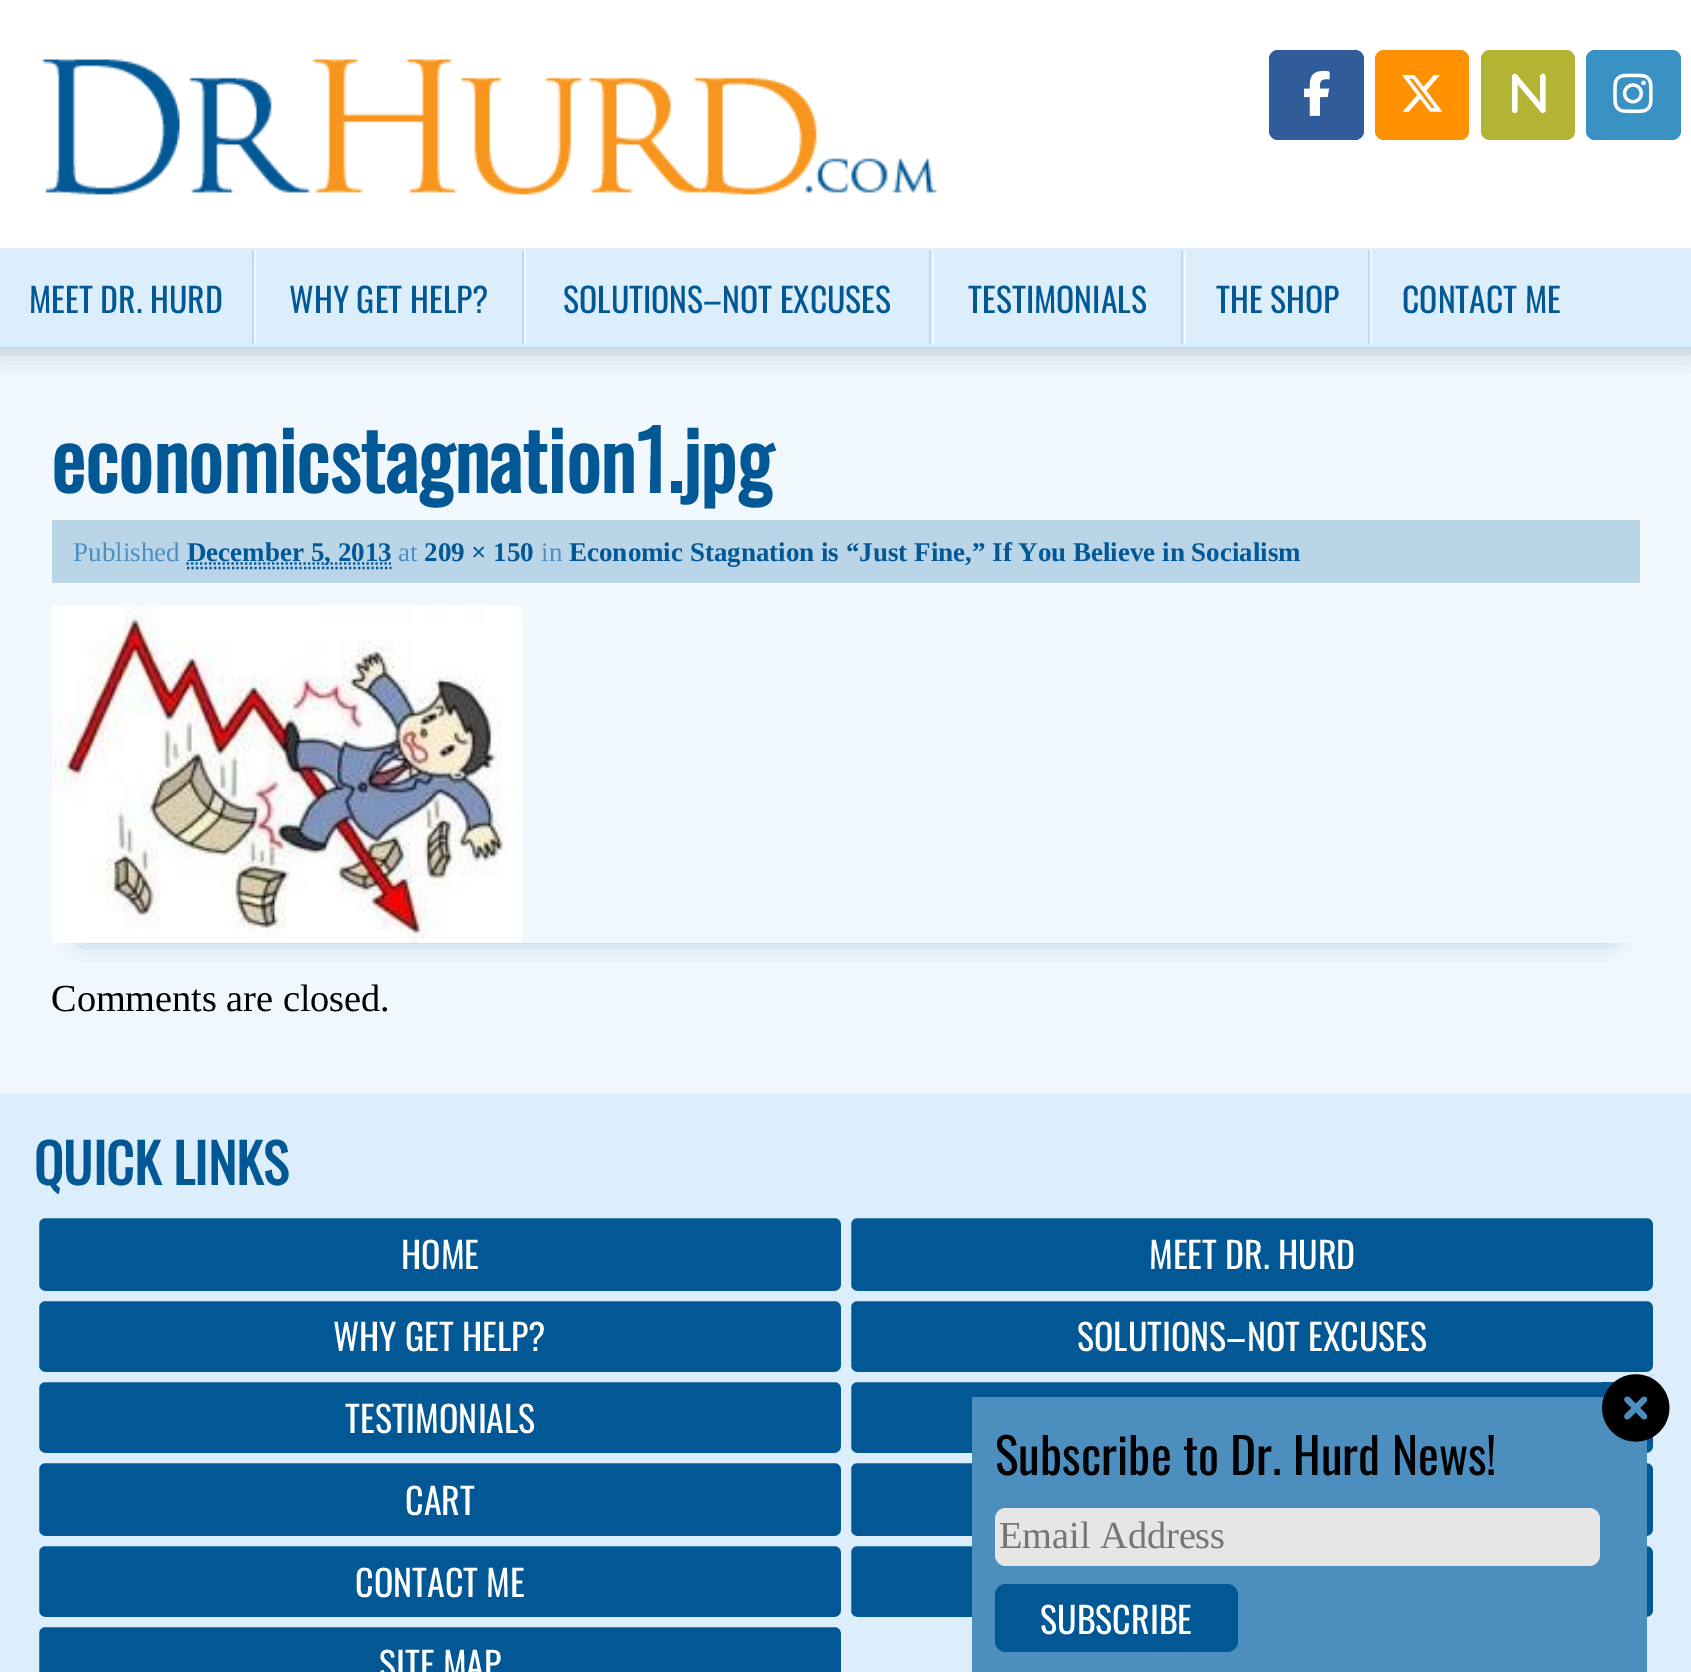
%!PS
<< /PageSize [1691 1672] /PageUsesTransparency true >> setpagedevice
/alpha { dup .setfillconstantalpha .setstrokeconstantalpha } def
/roundrect { 5 dict begin { /r /h /w /y /x } { exch def } forall
  x r add y moveto x w add y 2 copy h add r arct x w add y h add x 1 index r arct
  x y h add x y r arct x y 2 copy exch w add exch r arct closepath end } def
/shadow { 12 dict begin { /a /b /q /h /w /y /x } { exch def } forall gsave /was 0 def
  9 -2 -9 { dup b mul 4 div /e exch def 1 sub .425 mul 2.718 exch exp 1 add a .99 .min exch div /now exch def
    1 1 now sub 1 was sub div sub alpha /was now def
    w h .min e 2 mul add 0 gt { x e sub y e sub w e 2 mul add h e 2 mul add
      q e add b .6 mul add w h .min 2 div e add .min 0 .max roundrect fill } if } for grestore end } def
/picture { 5 dict begin { /h /w /y /x /name } { exch def } forall
  gsave x y translate w h scale
  w h 8 [w 0 0 h 0 0] name (r) file false 3 colorimage grestore end } def
0 .pushpdf14devicefilter
0 1672 translate 1 -1 scale
4 setmiterlimit
0.945 0.973 0.992 setrgbcolor
0 0 1691 1672 rectfill
0 setgray
0 -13 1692 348 0 17 0.7 shadow
1 setgray
0 0 1691 248 rectfill
0.753 0.859 0.937 setrgbcolor
0 347 1691 2 rectfill
(img1.rgb) 41 59 897 136 picture
0.188 0.361 0.6 setrgbcolor
1269 50 95 90 9 roundrect fill
(img2.rgb) 1304 70 26 46 picture
1 0.565 0 setrgbcolor
1375 50 94 90 9 roundrect fill
(img3.rgb) 1402 75 41 37 picture
0.706 0.706 0.204 setrgbcolor
1481 50 94 90 9 roundrect fill
(img4.rgb) 1512 73 34 41 picture
0.227 0.573 0.769 setrgbcolor
1586 50 95 90 9 roundrect fill
(img5.rgb) 1613 73 40 41 picture
0.863 0.933 0.984 setrgbcolor
0 248 1691 99 rectfill
0.741 0.855 0.937 setrgbcolor
252 250 2 94 rectfill
/Oswald-Regular [33.75 0 0 -33.75 0 0] selectfont
0.008 0.345 0.584 setrgbcolor
29 313 moveto (MEET DR. HURD) show
0.741 0.855 0.937 setrgbcolor
522 250 2 94 rectfill
0.949 0.976 0.996 setrgbcolor
254 250 2 94 rectfill
0.008 0.345 0.584 setrgbcolor
289 313 moveto (WHY GET HELP?) show
0.741 0.855 0.937 setrgbcolor
929 250 2 94 rectfill
0.949 0.976 0.996 setrgbcolor
524 250 2 94 rectfill
0.008 0.345 0.584 setrgbcolor
563 313 moveto (SOLUTIONS–NOT EXCUSES) show
0.741 0.855 0.937 setrgbcolor
1181 250 2 94 rectfill
0.949 0.976 0.996 setrgbcolor
932 250 2 94 rectfill
0.008 0.345 0.584 setrgbcolor
968 313 moveto (TESTIMONIALS) show
0.741 0.855 0.937 setrgbcolor
1368 250 2 94 rectfill
0.949 0.976 0.996 setrgbcolor
1184 250 2 94 rectfill
0.008 0.345 0.584 setrgbcolor
1216 313 moveto (THE SHOP) show
0.949 0.976 0.996 setrgbcolor
1370 250 2 94 rectfill
0.008 0.345 0.584 setrgbcolor
1402 313 moveto (CONTACT ME) show
gsave
newpath 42 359 moveto 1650 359 lineto 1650 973 lineto 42 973 lineto closepath 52 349 moveto 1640 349 lineto 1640 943 lineto 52 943 lineto closepath eoclip newpath
0.298 0.561 0.749 setrgbcolor
81 398 1530 536 0 12.5 1 shadow
grestore
/Oswald-Bold [81 0 0 -81 0 0] selectfont
51 493 moveto (economicstagnation1.jpg) show
0.729 0.831 0.91 setrgbcolor
52 520 1588 63 rectfill
/LiberationSerif-Regular [27 0 0 -27 0 0] selectfont
0.298 0.561 0.749 setrgbcolor
73 561 moveto (Published) show
0.008 0.345 0.584 setrgbcolor
2.2 setlinewidth
[2.25 2.25] 0 setdash
newpath 186.5 563.5 moveto 391 563.5 lineto stroke
/LiberationSerif-Bold [27 0 0 -27 0 0] selectfont
187 561 moveto (December 5, 2013) show
newpath 187 568 moveto 391.5 568 lineto stroke
/LiberationSerif-Regular [27 0 0 -27 0 0] selectfont
0.298 0.561 0.749 setrgbcolor
398 561 moveto (at) show
/LiberationSerif-Bold [27 0 0 -27 0 0] selectfont
0.008 0.345 0.584 setrgbcolor
424 561 moveto (209 × 150) show
/LiberationSerif-Regular [27 0 0 -27 0 0] selectfont
0.298 0.561 0.749 setrgbcolor
541 561 moveto (in) show
/LiberationSerif-Bold [27 0 0 -27 0 0] selectfont
0.008 0.345 0.584 setrgbcolor
569 561 moveto (Economic Stagnation is “Just Fine,” If You Believe in Socialism) show
(img6.rgb) 52 605 470 338 picture
/LiberationSerif-Regular [38.25 0 0 -38.25 0 0] selectfont
0 setgray
51 1011 moveto (Comments are closed.) show
0.863 0.933 0.984 setrgbcolor
0 1094 1691 578 rectfill
/Oswald-Bold [54 0 0 -54 0 0] selectfont
0.008 0.345 0.584 setrgbcolor
34 1185 moveto (QUICK LINKS) show
36.5 1215.5 807 78 8.5 roundrect gsave fill grestore
0.863 0.933 0.984 setrgbcolor
5 setlinewidth
[] 0 setdash
stroke
/Oswald-Regular [36 0 0 -36 0 0] selectfont
1 setgray
401 1269 moveto (HOME) show
0.008 0.345 0.584 setrgbcolor
848.5 1215.5 807 78 8.5 roundrect gsave fill grestore
0.863 0.933 0.984 setrgbcolor
stroke
1 setgray
1149 1269 moveto (MEET DR. HURD) show
0.008 0.345 0.584 setrgbcolor
36.5 1298.5 807 76 8.5 roundrect gsave fill grestore
0.863 0.933 0.984 setrgbcolor
stroke
1 setgray
333 1351 moveto (WHY GET HELP?) show
0.008 0.345 0.584 setrgbcolor
848.5 1298.5 807 76 8.5 roundrect gsave fill grestore
0.863 0.933 0.984 setrgbcolor
stroke
1 setgray
1077 1351 moveto (SOLUTIONS–NOT EXCUSES) show
0.008 0.345 0.584 setrgbcolor
36.5 1379.5 807 76 8.5 roundrect gsave fill grestore
0.863 0.933 0.984 setrgbcolor
stroke
1 setgray
345 1433 moveto (TESTIMONIALS) show
0.008 0.345 0.584 setrgbcolor
848.5 1379.5 807 76 8.5 roundrect gsave fill grestore
0.863 0.933 0.984 setrgbcolor
stroke
0.008 0.345 0.584 setrgbcolor
36.5 1460.5 807 78 8.5 roundrect gsave fill grestore
0.863 0.933 0.984 setrgbcolor
stroke
1 setgray
405 1515 moveto (CART) show
0.008 0.345 0.584 setrgbcolor
848.5 1460.5 807 78 8.5 roundrect gsave fill grestore
0.863 0.933 0.984 setrgbcolor
stroke
0.008 0.345 0.584 setrgbcolor
36.5 1543.5 807 76 8.5 roundrect gsave fill grestore
0.863 0.933 0.984 setrgbcolor
stroke
1 setgray
355 1597 moveto (CONTACT ME) show
0.008 0.345 0.584 setrgbcolor
848.5 1543.5 807 76 8.5 roundrect gsave fill grestore
0.863 0.933 0.984 setrgbcolor
stroke
0.008 0.345 0.584 setrgbcolor
36.5 1624.5 807 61 8.5 roundrect gsave fill grestore
0.863 0.933 0.984 setrgbcolor
stroke
1 setgray
379 1679 moveto (SITE MAP) show
0.298 0.561 0.749 setrgbcolor
972 1397 675 275 rectfill
(img7.rgb) 1602 1374 68 68 picture
/Oswald-Regular [49.5 0 0 -49.5 0 0] selectfont
0 setgray
995 1475 moveto (Subscribe to Dr. Hurd News!) show
0.902 setgray
995 1508 605 58 11 roundrect fill
/LiberationSerif-Regular [38.25 0 0 -38.25 0 0] selectfont
0.459 setgray
999 1548 moveto (Email Address) show
0.008 0.345 0.584 setrgbcolor
995 1584 243 68 11 roundrect fill
/Oswald-Regular [36 0 0 -36 0 0] selectfont
1 setgray
1040 1634 moveto (SUBSCRIBE) show
.poppdf14devicefilter showpage
